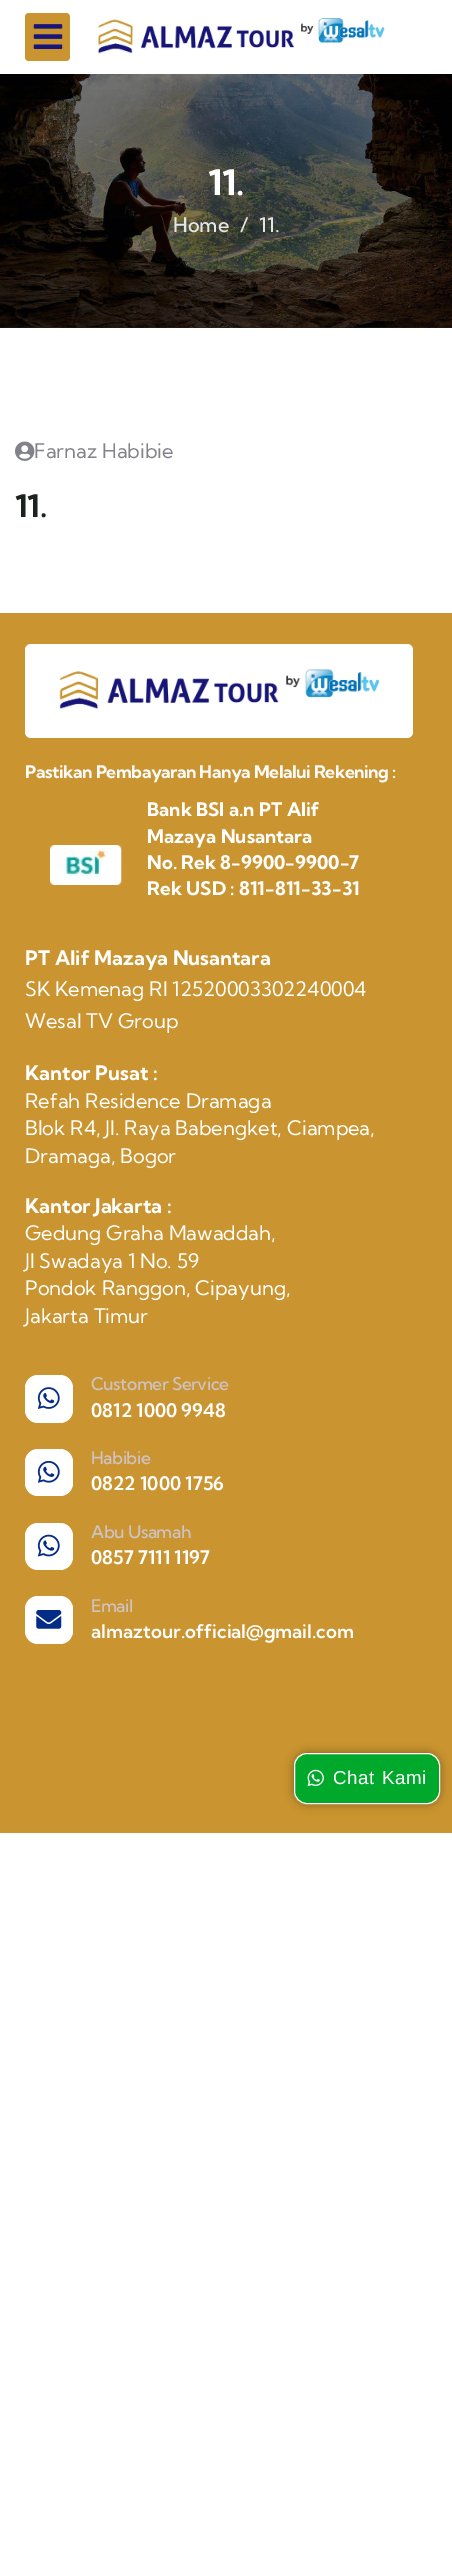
%!PS
<< /PageSize [452 2555] /PageUsesTransparency true >> setpagedevice
/alpha { dup .setfillconstantalpha .setstrokeconstantalpha } def
/roundrect { 5 dict begin { /r /h /w /y /x } { exch def } forall
  x r add y moveto x w add y 2 copy h add r arct x w add y h add x 1 index r arct
  x y h add x y r arct x y 2 copy exch w add exch r arct closepath end } def
/shadow { 12 dict begin { /a /b /q /h /w /y /x } { exch def } forall gsave /was 0 def
  9 -2 -9 { dup b mul 4 div /e exch def 1 sub .425 mul 2.718 exch exp 1 add a .99 .min exch div /now exch def
    1 1 now sub 1 was sub div sub alpha /was now def
    w h .min e 2 mul add 0 gt { x e sub y e sub w e 2 mul add h e 2 mul add
      q e add b .6 mul add w h .min 2 div e add .min 0 .max roundrect fill } if } for grestore end } def
/picture { 5 dict begin { /h /w /y /x /name } { exch def } forall
  gsave x y translate w h scale
  w h 8 [w 0 0 h 0 0] name (r) file false 3 colorimage grestore end } def
0 .pushpdf14devicefilter
0 2555 translate 1 -1 scale
4 setmiterlimit
1 setgray
0 0 452 2555 rectfill
0.792 0.584 0.188 setrgbcolor
25 13 45 48 4 roundrect fill
(img1.rgb) 33 24 30 25 picture
(img2.rgb) 98 17 287 37 picture
0.11 0.137 0.122 setrgbcolor
0 327 452 1 rectfill
(img3.rgb) 0 74 452 254 picture
/KumbhSans-Bold [35 0 0 -35 0 0] selectfont
1 setgray
208 195 moveto -0.5 0 (11.) ashow
/KumbhSans-Medium [20 0 0 -20 0 0] selectfont
0.898 setgray
173 232 moveto (Home) show
240 232 moveto (/) show
259 232 moveto (11.) show
(img4.rgb) 15 441 20 20 picture
/KumbhSans-Regular [20 0 0 -20 0 0] selectfont
0.51 0.51 0.541 setrgbcolor
34 458 moveto (Farnaz Habibie) show
/KumbhSans-Bold [31 0 0 -31 0 0] selectfont
0.11 0.137 0.122 setrgbcolor
15 517 moveto -0.5 0 (11.) ashow
0.792 0.584 0.188 setrgbcolor
0 613 452 1220 rectfill
1 setgray
25 644 388 94 6 roundrect fill
(img5.rgb) 59 669 321 40 picture
/KumbhSans-Bold [17.5 0 0 -17.5 0 0] selectfont
0.976 0.98 0.98 setrgbcolor
25 778 moveto -0.5 0 (Pastikan Pembayaran Hanya Melalui Rekening :) ashow
(img6.rgb) 50 845 72 40 picture
/KumbhSans-Bold [18.75 0 0 -18.75 0 0] selectfont
1 setgray
147 816 moveto (Bank BSI a.n PT Alif) show
147 843 moveto (Mazaya Nusantara) show
147 869 moveto (No. Rek 8-9900-9900-7) show
147 895 moveto (Rek USD : 811-811-33-31) show
/KumbhSans-Bold [20 0 0 -20 0 0] selectfont
25 965 moveto (PT Alif Mazaya Nusantara) show
/KumbhSans-Regular [20 0 0 -20 0 0] selectfont
25 996 moveto (SK Kemenag RI 12520003302240004) show
25 1028 moveto (Wesal TV Group) show
/KumbhSans-Bold [20 0 0 -20 0 0] selectfont
25 1080 moveto (Kantor Pusat :) show
/KumbhSans-Regular [20 0 0 -20 0 0] selectfont
25 1108 moveto (Refah Residence Dramaga) show
25 1135 moveto (Blok R4, Jl. Raya Babengket, Ciampea,) show
25 1163 moveto (Dramaga, Bogor) show
/KumbhSans-Bold [20 0 0 -20 0 0] selectfont
25 1213 moveto (Kantor Jakarta :) show
/KumbhSans-Regular [20 0 0 -20 0 0] selectfont
25 1240 moveto (Gedung Graha Mawaddah,) show
25 1268 moveto (Jl Swadaya 1 No. 59) show
25 1295 moveto (Pondok Ranggon, Cipayung,) show
25 1323 moveto (Jakarta Timur) show
25 1375 48 48 13 roundrect fill
(img7.rgb) 37 1387 23 22 picture
/KumbhSans-Medium [17.5 0 0 -17.5 0 0] selectfont
0.808 0.761 0.761 setrgbcolor
91 1390 moveto -0.5 0 (Customer Service) ashow
/KumbhSans-SemiBold [18.75 0 0 -18.75 0 0] selectfont
1 setgray
91 1417 moveto (0812 1000 9948) show
25 1449 48 47 13 roundrect fill
(img8.rgb) 37 1460 23 23 picture
/KumbhSans-Medium [17.5 0 0 -17.5 0 0] selectfont
0.808 0.761 0.761 setrgbcolor
91 1464 moveto -0.5 0 (Habibie) ashow
/KumbhSans-SemiBold [18.75 0 0 -18.75 0 0] selectfont
1 setgray
91 1490 moveto (0822 1000 1756) show
25 1523 48 47 13 roundrect fill
(img9.rgb) 37 1534 23 23 picture
/KumbhSans-Medium [17.5 0 0 -17.5 0 0] selectfont
0.808 0.761 0.761 setrgbcolor
91 1538 moveto -0.5 0 (Abu Usamah) ashow
/KumbhSans-SemiBold [18.75 0 0 -18.75 0 0] selectfont
1 setgray
91 1564 moveto (0857 7111 1197) show
25 1596 48 48 13 roundrect fill
(img10.rgb) 36 1610 26 19 picture
/KumbhSans-Medium [17.5 0 0 -17.5 0 0] selectfont
0.808 0.761 0.761 setrgbcolor
91 1612 moveto -0.5 0 (Email) ashow
/KumbhSans-SemiBold [18.75 0 0 -18.75 0 0] selectfont
1 setgray
91 1638 moveto (almaztour.official@gmail.com) show
0 setgray
294 1753 146 51 13 5 0.39 shadow
0 0.659 0.169 setrgbcolor
294.5 1753.5 145 50 12.5 roundrect gsave fill grestore
1 setgray
stroke
(img11.rgb) 307 1769 17 18 picture
/LiberationSans-Regular [18.75 0 0 -18.75 0 0] selectfont
333 1784 moveto 2 0 32 0.4 0 (Chat Kami) awidthshow
.poppdf14devicefilter showpage
